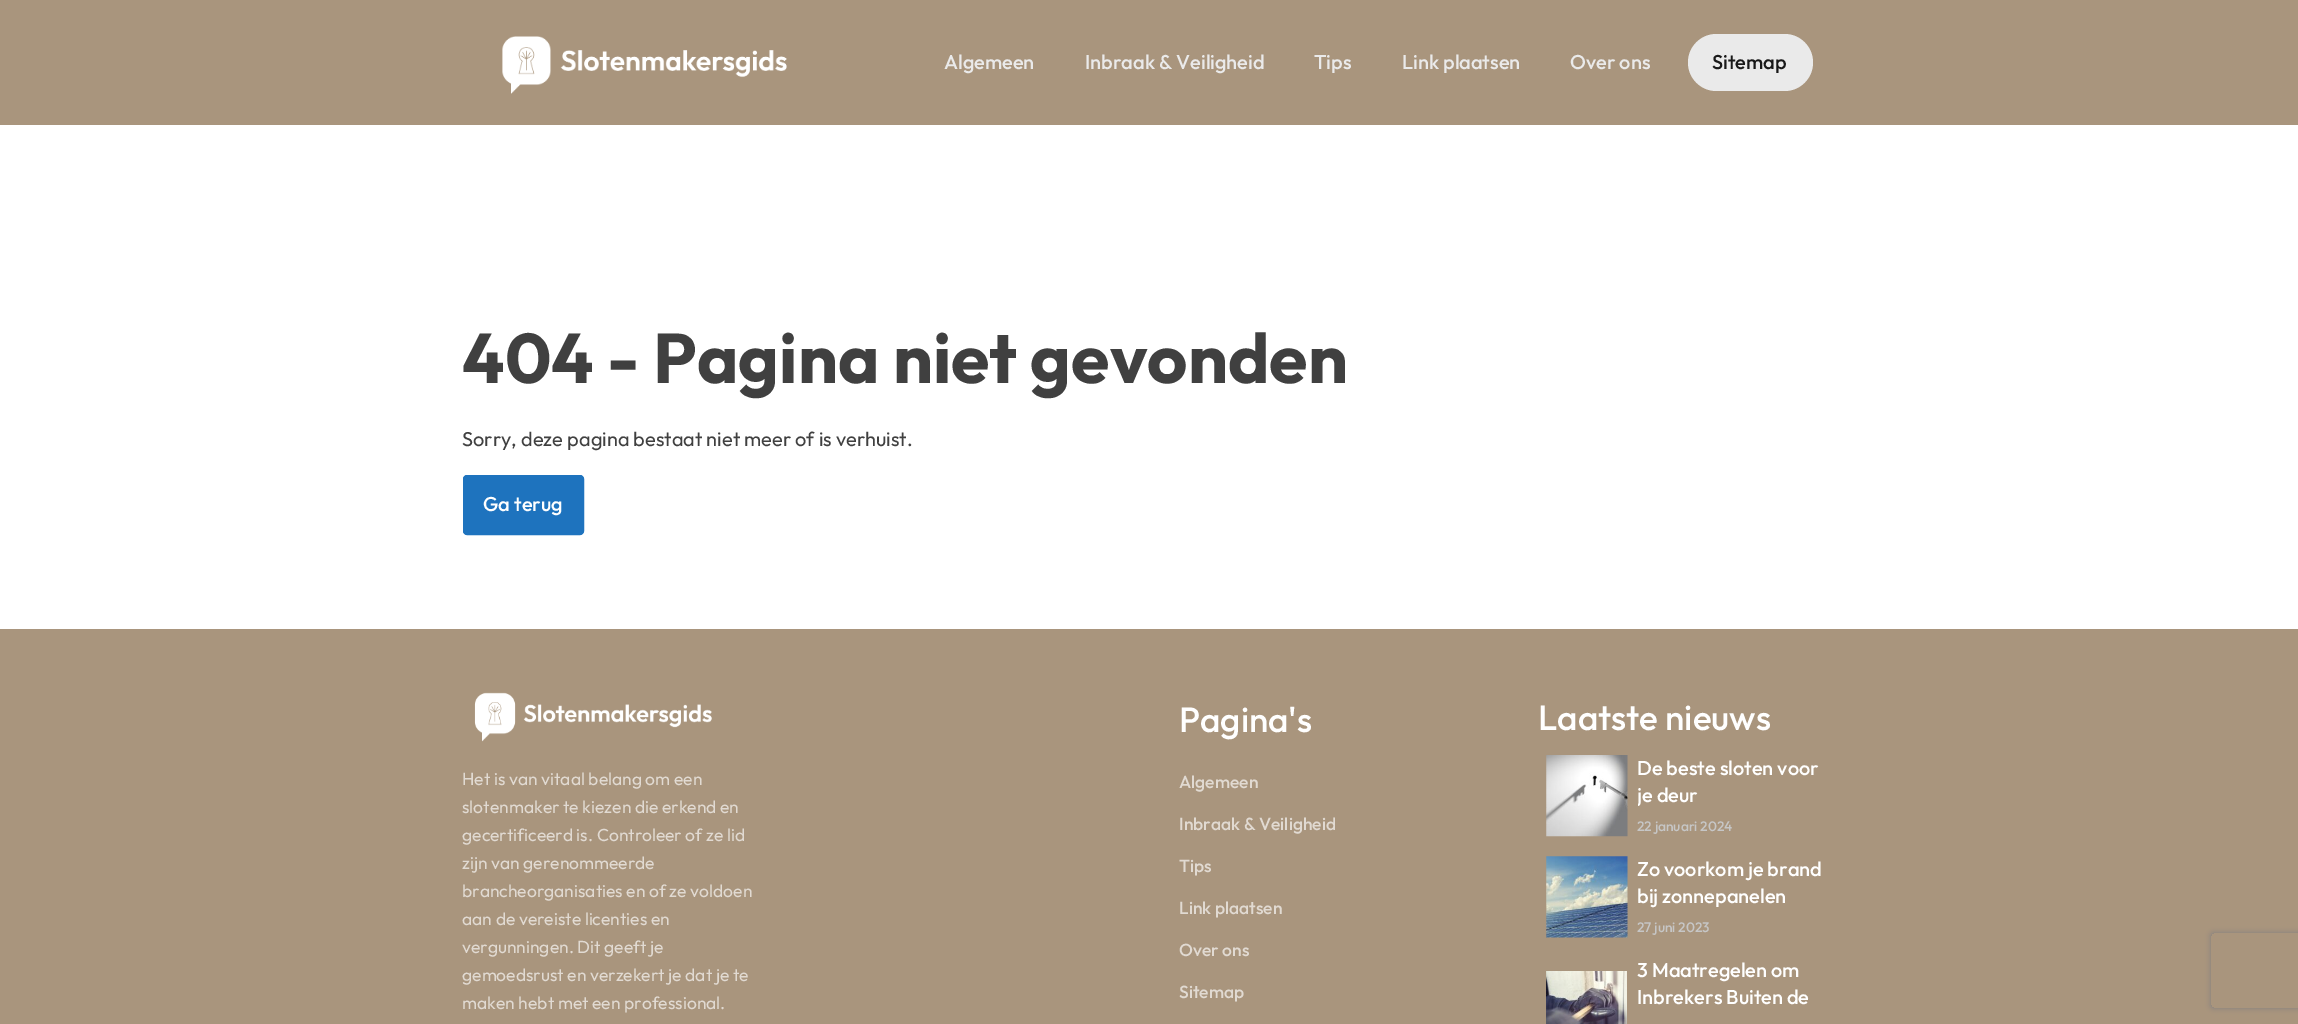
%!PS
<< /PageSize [2298 1024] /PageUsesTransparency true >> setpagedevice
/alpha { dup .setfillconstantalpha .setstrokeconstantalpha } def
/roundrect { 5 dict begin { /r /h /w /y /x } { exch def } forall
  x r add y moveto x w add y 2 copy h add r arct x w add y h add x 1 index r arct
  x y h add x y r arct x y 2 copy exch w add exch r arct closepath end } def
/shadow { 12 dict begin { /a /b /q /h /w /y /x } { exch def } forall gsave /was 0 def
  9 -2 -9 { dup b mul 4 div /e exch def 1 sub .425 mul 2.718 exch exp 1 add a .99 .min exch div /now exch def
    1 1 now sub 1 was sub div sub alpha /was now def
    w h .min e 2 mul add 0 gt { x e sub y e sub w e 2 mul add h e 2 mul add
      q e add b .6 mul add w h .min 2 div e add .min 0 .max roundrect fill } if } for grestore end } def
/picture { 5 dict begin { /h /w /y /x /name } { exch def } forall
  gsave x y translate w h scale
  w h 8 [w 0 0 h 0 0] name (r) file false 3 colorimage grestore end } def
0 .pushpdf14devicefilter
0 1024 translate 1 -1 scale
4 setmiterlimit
1 setgray
0 0 2298 1024 rectfill
0.663 0.584 0.49 setrgbcolor
0 0 2298 125 rectfill
(img1.rgb) 502 36 285 58 picture
/Outfit-Medium [20 0 0 -20 0 0] selectfont
0.918 setgray
944 69 moveto (Algemeen) show
1085 69 moveto (Inbraak & Veiligheid) show
1314 69 moveto (Tips) show
1402 69 moveto (Link plaatsen) show
1570 69 moveto (Over ons) show
1688 34 125 57 28.5 roundrect fill
0.098 setgray
1712 69 moveto (Sitemap) show
/Outfit-Bold [70 0 0 -70 0 0] selectfont
0.251 setgray
462 383 moveto (404 - Pagina niet gevonden) show
/Outfit-Regular [20 0 0 -20 0 0] selectfont
462 446 moveto (Sorry, deze pagina bestaat niet meer of is verhuist.) show
0.118 0.451 0.745 setrgbcolor
463.5 475.5 120 59 3.5 roundrect gsave fill grestore
stroke
/Outfit-Medium [20 0 0 -20 0 0] selectfont
1 setgray
483 511 moveto (Ga terug) show
0.663 0.584 0.49 setrgbcolor
0 629 2298 395 rectfill
(img2.rgb) 474 692 238 50 picture
/Outfit-Regular [17.5 0 0 -17.5 0 0] selectfont
0.882 0.855 0.824 setrgbcolor
462 785 moveto (Het is van vitaal belang om een) show
462 813 moveto (slotenmaker te kiezen die erkend en) show
462 841 moveto (gecertificeerd is. Controleer of ze lid) show
462 869 moveto (zijn van gerenommeerde) show
462 897 moveto (brancheorganisaties en of ze voldoen) show
462 925 moveto (aan de vereiste licenties en) show
462 953 moveto (vergunningen. Dit geeft je) show
462 981 moveto (gemoedsrust en verzekert je dat je te) show
462 1009 moveto (maken hebt met een professional.) show
/Outfit-Medium [35 0 0 -35 0 0] selectfont
1 setgray
1179 732 moveto (Pagina's) show
/Outfit-Medium [17.5 0 0 -17.5 0 0] selectfont
0.882 0.855 0.824 setrgbcolor
1179 788 moveto (Algemeen) show
1179 830 moveto (Inbraak & Veiligheid) show
1179 872 moveto (Tips) show
1179 914 moveto (Link plaatsen) show
1179 956 moveto (Over ons) show
1179 998 moveto (Sitemap) show
/Outfit-Medium [35 0 0 -35 0 0] selectfont
1 setgray
1538 730 moveto (Laatste nieuws) show
(img3.rgb) 1546 755 82 82 picture
/Outfit-Medium [20 0 0 -20 0 0] selectfont
1637 775 moveto (De beste sloten voor) show
gsave
1638 755 192 54 rectclip
1637 802 moveto (je deur) show
grestore
/Outfit-Medium [13.75 0 0 -13.75 0 0] selectfont
0.776 setgray
1637 831 moveto (22 januari 2024) show
(img4.rgb) 1546 856 82 82 picture
/Outfit-Medium [20 0 0 -20 0 0] selectfont
1 setgray
1637 876 moveto (Zo voorkom je brand) show
1637 903 moveto (bij zonnepanelen) show
/Outfit-Medium [13.75 0 0 -13.75 0 0] selectfont
0.776 setgray
1637 932 moveto (27 juni 2023) show
(img5.rgb) 1546 971 81 53 picture
/Outfit-Medium [20 0 0 -20 0 0] selectfont
1 setgray
1637 977 moveto (3 Maatregelen om) show
1637 1004 moveto (Inbrekers Buiten de) show
gsave
newpath 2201 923 moveto 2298 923 lineto 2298 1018 lineto 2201 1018 lineto closepath 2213.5 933 moveto 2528.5 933 lineto 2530 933 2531 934 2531 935.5 curveto 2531 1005.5 lineto 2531 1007 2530 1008 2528.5 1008 curveto 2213.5 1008 lineto 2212 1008 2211 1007 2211 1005.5 curveto 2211 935.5 lineto 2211 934 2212 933 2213.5 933 curveto closepath eoclip newpath
0.502 setgray
2211 933 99 75 2.5 3 1 shadow
grestore
.poppdf14devicefilter showpage
